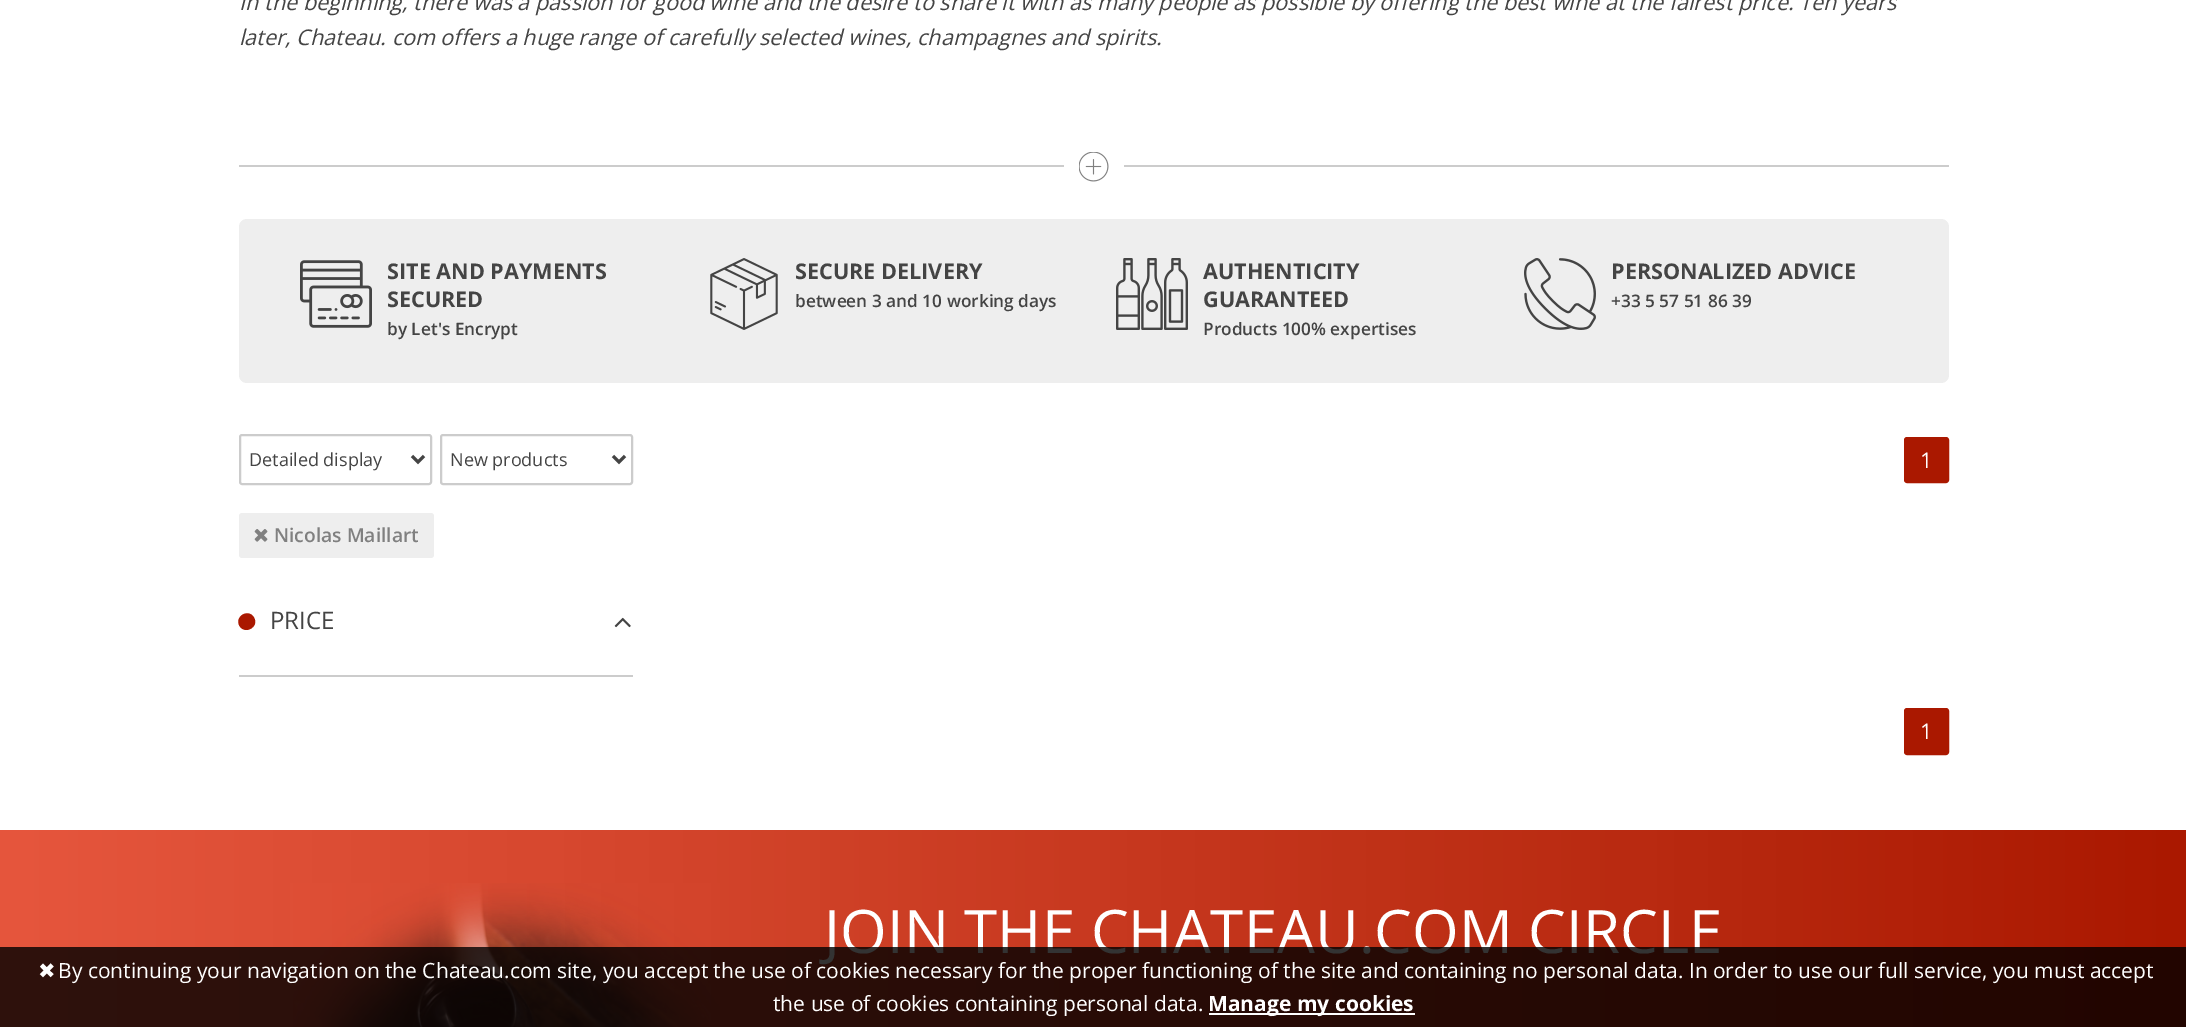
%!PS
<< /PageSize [2186 1027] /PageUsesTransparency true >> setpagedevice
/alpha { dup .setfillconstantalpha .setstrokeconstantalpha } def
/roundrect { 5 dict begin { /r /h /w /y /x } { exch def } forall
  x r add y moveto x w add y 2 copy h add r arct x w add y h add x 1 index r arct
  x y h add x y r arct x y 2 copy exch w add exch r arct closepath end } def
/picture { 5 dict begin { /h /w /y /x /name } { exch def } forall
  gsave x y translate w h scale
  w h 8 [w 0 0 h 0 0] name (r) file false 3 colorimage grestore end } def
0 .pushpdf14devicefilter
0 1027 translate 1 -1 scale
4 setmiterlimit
1 setgray
0 0 2186 1027 rectfill
/OpenSans-Italic [21.6 0 0 -21.6 0 0] selectfont
0.267 setgray
239 10 moveto (In the beginning, there was a passion for good wine and the desire to share it with as many people as possible by offering the best wine at the fairest price. Ten years) show
239 45 moveto (later, Chateau. com offers a huge range of carefully selected wines, champagnes and spirits.) show
0.8 setgray
239 165 1710 2 rectfill
1 setgray
1064 165 60 2 rectfill
(img1.rgb) 1079 152 30 30 picture
0.933 setgray
239 219 1710 164 8 roundrect fill
(img2.rgb) 300 260 72 68 picture
/OpenSans-Bold [21.6 0 0 -21.6 0 0] selectfont
0.267 setgray
387 279 moveto (SITE AND PAYMENTS) show
387 307 moveto (SECURED) show
/OpenSans-SemiBold [17.25 0 0 -17.25 0 0] selectfont
387 335 moveto (by Let's Encrypt) show
(img3.rgb) 710 258 68 72 picture
/OpenSans-Bold [21.6 0 0 -21.6 0 0] selectfont
795 279 moveto (SECURE DELIVERY) show
/OpenSans-SemiBold [17.25 0 0 -17.25 0 0] selectfont
795 307 moveto (between 3 and 10 working days) show
(img4.rgb) 1116 258 72 72 picture
/OpenSans-Bold [21.6 0 0 -21.6 0 0] selectfont
1203 279 moveto (AUTHENTICITY) show
1203 307 moveto (GUARANTEED) show
/OpenSans-SemiBold [17.25 0 0 -17.25 0 0] selectfont
1203 335 moveto (Products 100% expertises) show
(img5.rgb) 1524 258 72 72 picture
/OpenSans-Bold [21.6 0 0 -21.6 0 0] selectfont
1611 279 moveto (PERSONALIZED ADVICE) show
/OpenSans-SemiBold [17.25 0 0 -17.25 0 0] selectfont
1611 307 moveto (+33 5 57 51 86 39) show
0.8 setgray
2 setlinewidth
240 435 191 49 2 roundrect stroke
0.267 setgray
3 setlinewidth
newpath 412 456 moveto 418 462 lineto 424 456 lineto stroke
/OpenSans-Regular [18 0 0 -18 0 0] selectfont
249 466 moveto (Detailed display) show
0.8 setgray
2 setlinewidth
441 435 191 49 2 roundrect stroke
0.267 setgray
3 setlinewidth
newpath 613 456 moveto 619 462 lineto 625 456 lineto stroke
450 466 moveto (New products) show
0.667 0.094 0 setrgbcolor
1905 438 43 44 2 roundrect gsave fill grestore
2 setlinewidth
stroke
/OpenSans-Regular [21.6 0 0 -21.6 0 0] selectfont
1 setgray
1920 468 moveto (1) show
0.8 setgray
239 675 394 2 rectfill
0.933 setgray
239 513 195 45 3 roundrect fill
(img6.rgb) 254 529 14 13 picture
/OpenSans-SemiBold [19.25 0 0 -19.25 0 0] selectfont
0.502 setgray
274 542 moveto (Nicolas Maillart) show
0.667 0.094 0 setrgbcolor
newpath 254 617.5 moveto 259.5 627 245 635 239.5 626 curveto 234 616.5 248.5 608 254 617.5 curveto closepath fill
/OpenSans-Regular [24 0 0 -24 0 0] selectfont
0.267 setgray
270 629 moveto (PRICE) show
(img7.rgb) 614 617 17 11 picture
0.667 0.094 0 setrgbcolor
1905 709 43 45 2 roundrect gsave fill grestore
stroke
/OpenSans-Regular [21.6 0 0 -21.6 0 0] selectfont
1 setgray
1920 739 moveto (1) show
gsave newpath 0 830 moveto 2186 830 lineto 2186 1027 lineto 0 1027 lineto closepath clip newpath
<< /ShadingType 2 /ColorSpace /DeviceRGB /Coords [0 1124 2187 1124] /Extend [true true] /Function << /FunctionType 3 /Domain [0 1] /Functions [<< /FunctionType 2 /Domain [0 1] /C0 [0.902 0.337 0.239] /C1 [0.843 0.282 0.184] /N 1 >> << /FunctionType 2 /Domain [0 1] /C0 [0.843 0.282 0.184] /C1 [0.784 0.224 0.125] /N 1 >> << /FunctionType 2 /Domain [0 1] /C0 [0.784 0.224 0.125] /C1 [0.725 0.165 0.067] /N 1 >> << /FunctionType 2 /Domain [0 1] /C0 [0.725 0.165 0.067] /C1 [0.667 0.094 0] /N 1 >>] /Bounds [0.25 0.5 0.75] /Encode [0 1 0 1 0 1 0 1] >> >> shfill grestore
(img8.rgb) 290 883 430 144 picture
/OpenSans-Regular [60 0 0 -60 0 0] selectfont
824 953 moveto (JOIN THE CHATEAU.COM CIRCLE) show
0.8 alpha
0 setgray
0 947 2186 80 rectfill
/DejaVuSans-Regular [21 0 0 -21 0 0] selectfont
1 alpha
1 setgray
38 978 moveto (✖) show
/OpenSans-Regular [21 0 0 -21 0 0] selectfont
58 978 moveto (By continuing your navigation on the Chateau.com site, you accept the use of cookies necessary for the proper functioning of the site and containing no personal data. In order to use our full service, you must accept) show
773 1011 moveto (the use of cookies containing personal data.) show
1209 1013 206 2 rectfill
/OpenSans-Bold [21 0 0 -21 0 0] selectfont
1208 1011 moveto (Manage my cookies) show
.poppdf14devicefilter showpage
